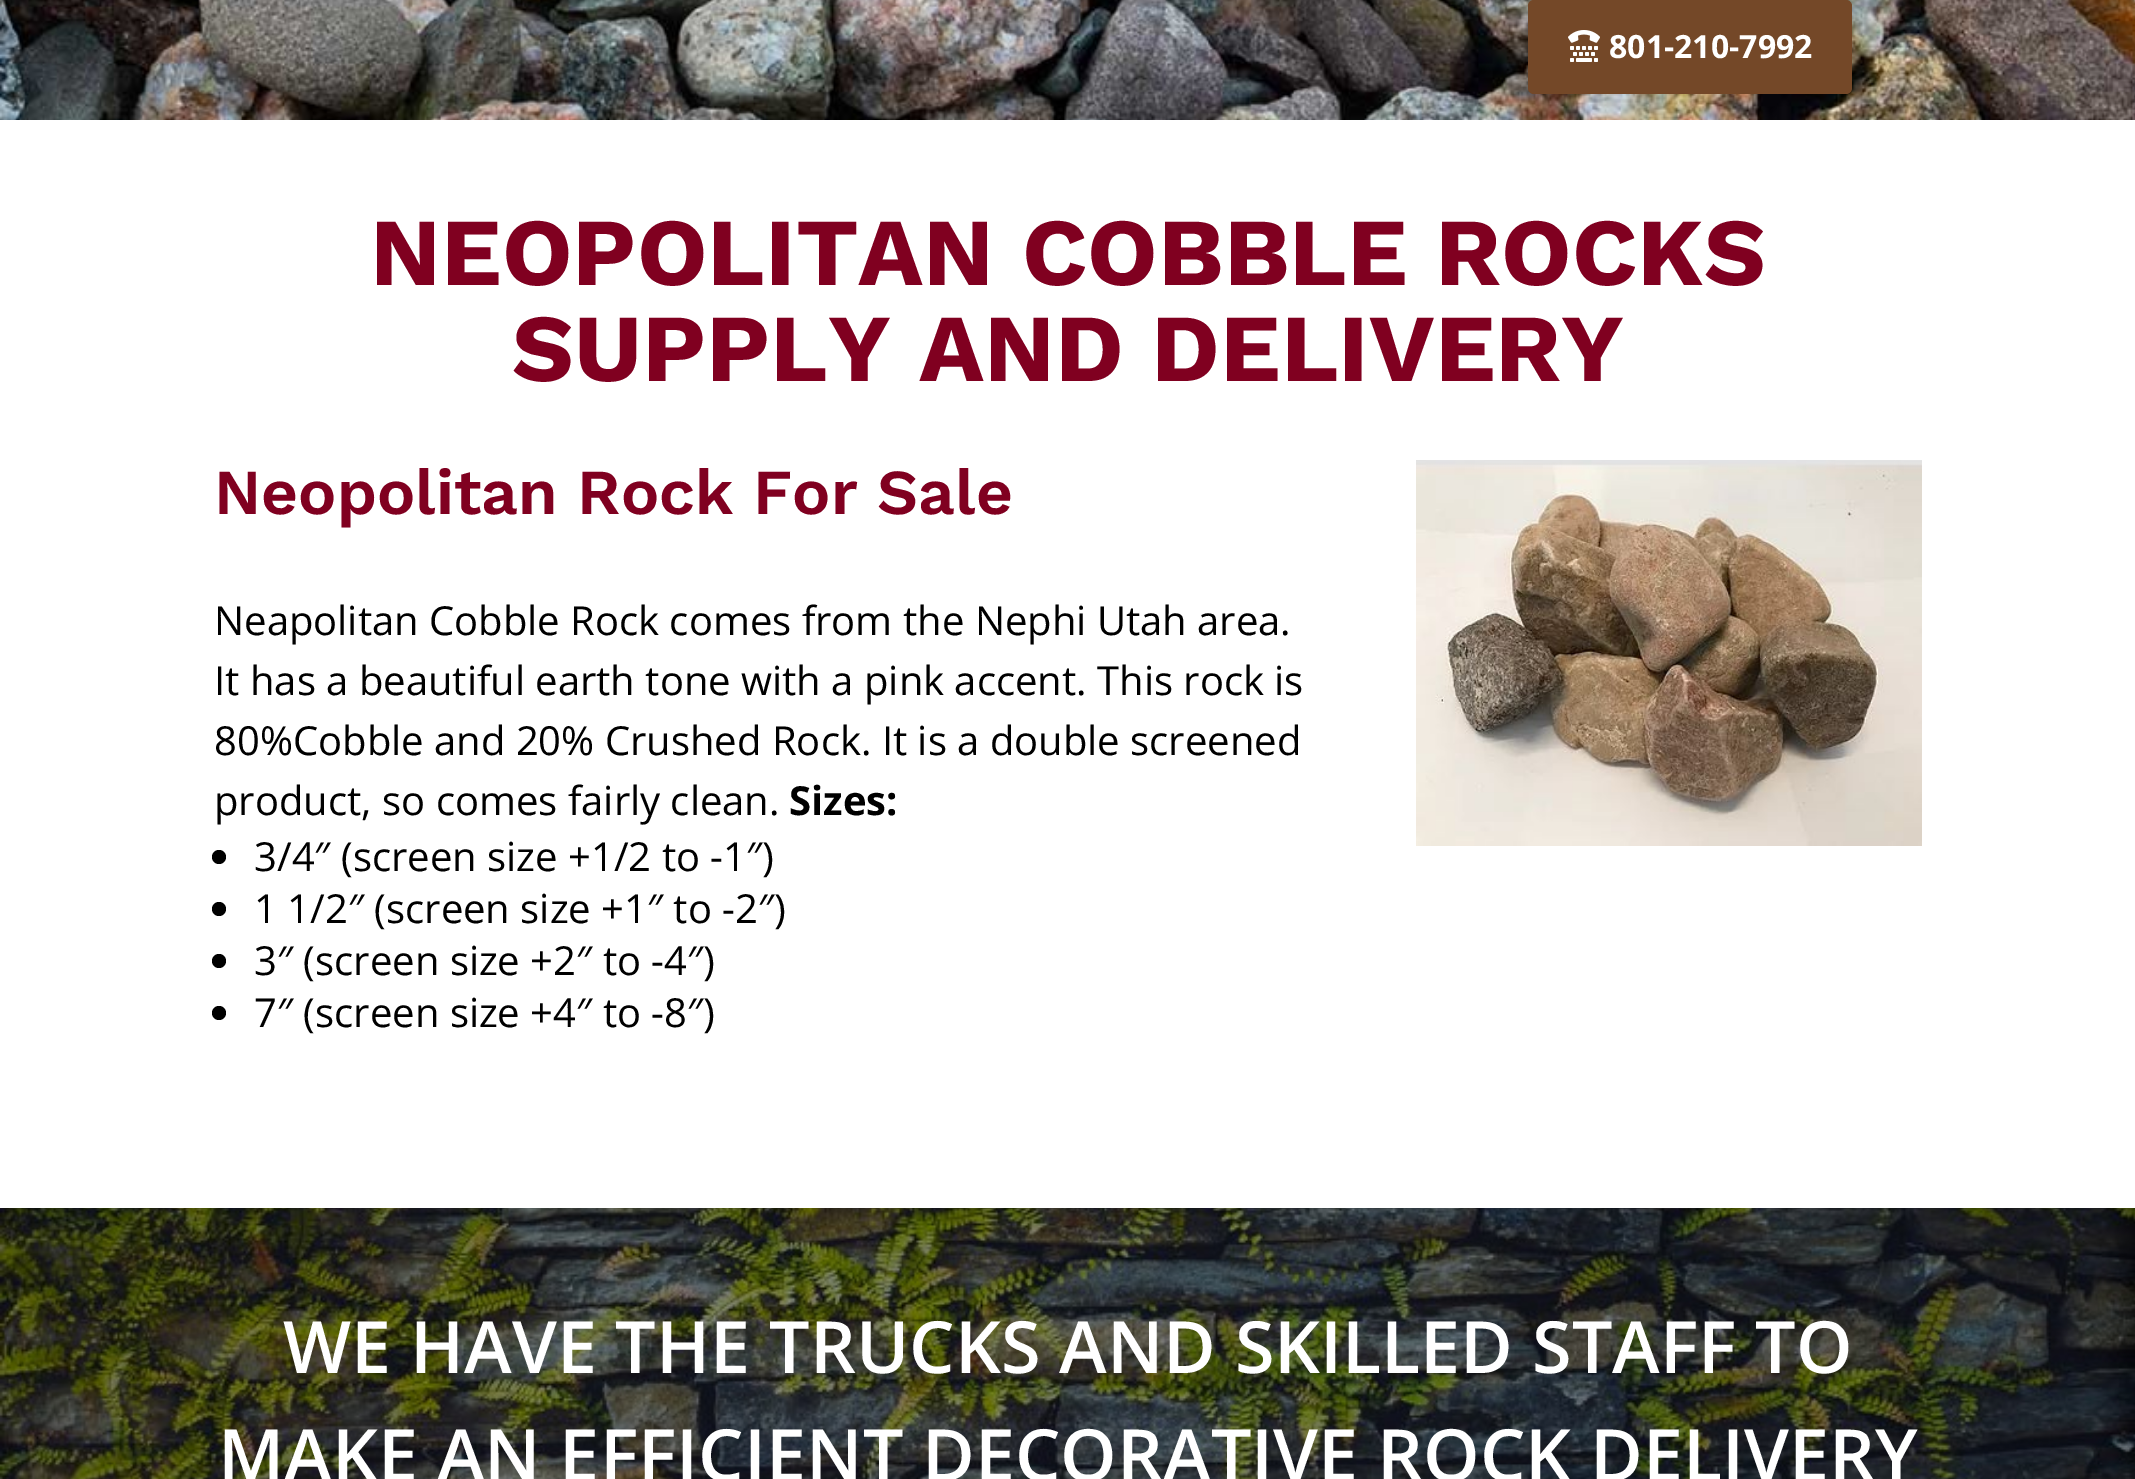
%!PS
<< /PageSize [2135 1479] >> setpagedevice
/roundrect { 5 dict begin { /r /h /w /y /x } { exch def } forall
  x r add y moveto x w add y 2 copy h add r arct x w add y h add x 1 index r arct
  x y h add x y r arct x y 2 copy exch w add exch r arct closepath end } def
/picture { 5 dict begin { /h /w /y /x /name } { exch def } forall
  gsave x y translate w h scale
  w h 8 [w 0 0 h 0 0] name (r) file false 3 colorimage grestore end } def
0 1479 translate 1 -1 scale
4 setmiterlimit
1 setgray
0 0 2135 1479 rectfill
(img2.rgb) 0 0 2135 120 picture
0.455 0.282 0.157 setrgbcolor
1528 0 324 94 6 roundrect fill
(img1.rgb) 1568 30 32 32 picture
/OpenSans-Bold [32 0 0 -32 0 0] selectfont
1 setgray
1609 58 moveto (801-210-7992) show
/WorkSans-Bold [96 0 0 -96 0 0] selectfont
0.502 0 0.125 setrgbcolor
370 285 moveto (NEOPOLITAN COBBLE ROCKS) show
512 381 moveto (SUPPLY AND DELIVERY) show
/WorkSans-SemiBold [64 0 0 -64 0 0] selectfont
214 514 moveto (Neopolitan Rock For Sale) show
/OpenSans-Regular [40 0 0 -40 0 0] selectfont
0 setgray
214 635 moveto (Neapolitan Cobble Rock comes from the Nephi Utah area.) show
214 695 moveto (It has a beautiful earth tone with a pink accent. This rock is) show
214 755 moveto (80%Cobble and 20% Crushed Rock. It is a double screened) show
214 815 moveto (product, so comes fairly clean.) show
/OpenSans-Bold [40 0 0 -40 0 0] selectfont
789 815 moveto (Sizes:) show
newpath 219 857 7 0 360 arc closepath fill
/OpenSans-Regular [40 0 0 -40 0 0] selectfont
254 871 moveto (3/4″ \(screen size +1/2 to -1″\)) show
newpath 219 909 7 0 360 arc closepath fill
254 923 moveto (1 1/2″ \(screen size +1″ to -2″\)) show
newpath 219 961 7 0 360 arc closepath fill
254 975 moveto (3″ \(screen size +2″ to -4″\)) show
newpath 219 1013 7 0 360 arc closepath fill
254 1027 moveto (7″ \(screen size +4″ to -8″\)) show
(img3.rgb) 1416 460 506 386 picture
(img4.rgb) 0 1208 2135 271 picture
/OpenSans-SemiBold [72 0 0 -72 0 0] selectfont
1 setgray
283 1373 moveto (WE HAVE THE TRUCKS AND SKILLED STAFF TO) show
218 1481 moveto (MAKE AN EFFICIENT DECORATIVE ROCK DELIVERY) show
showpage
